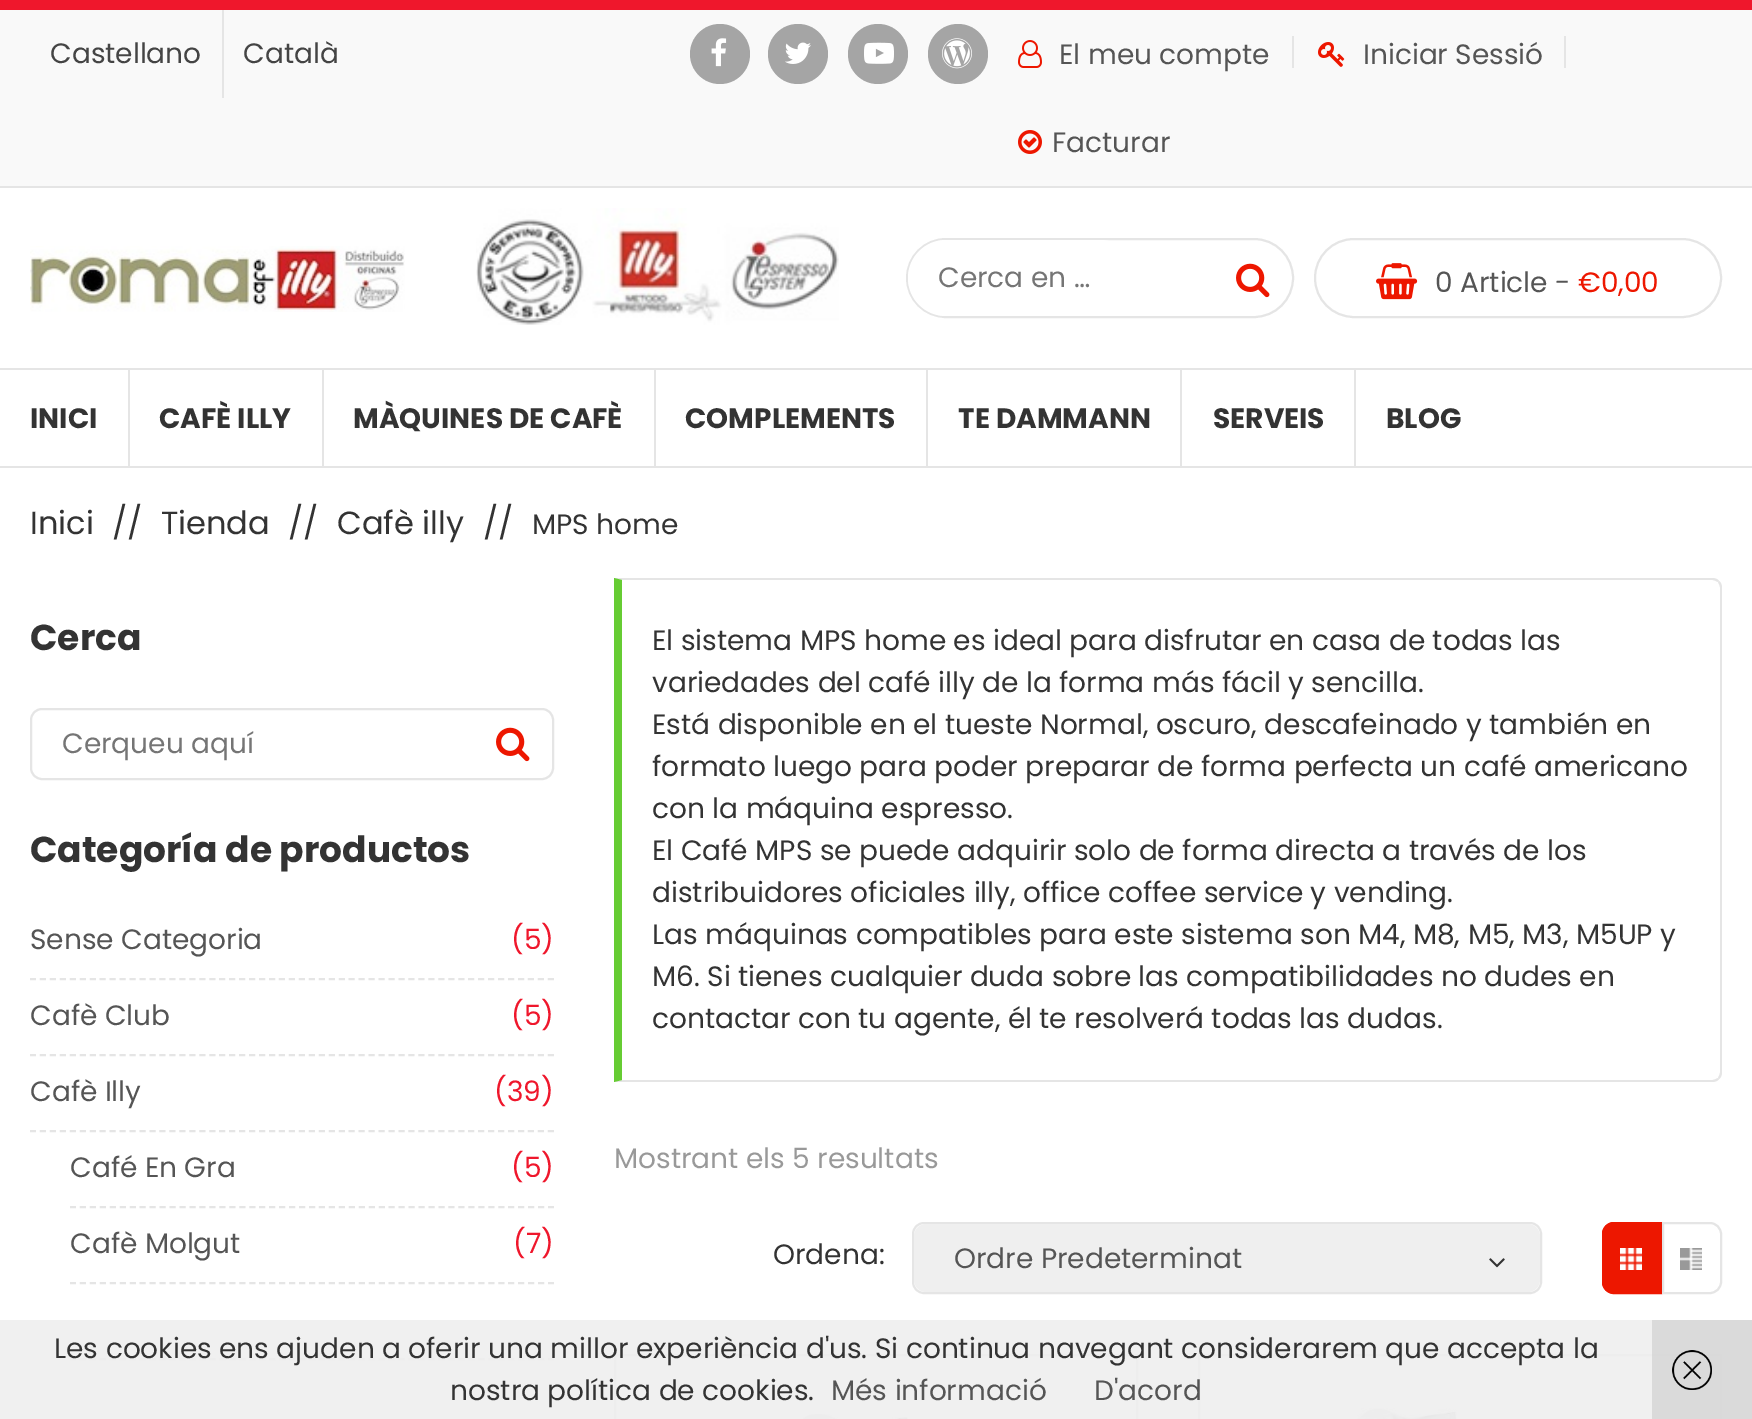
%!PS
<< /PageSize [1752 1419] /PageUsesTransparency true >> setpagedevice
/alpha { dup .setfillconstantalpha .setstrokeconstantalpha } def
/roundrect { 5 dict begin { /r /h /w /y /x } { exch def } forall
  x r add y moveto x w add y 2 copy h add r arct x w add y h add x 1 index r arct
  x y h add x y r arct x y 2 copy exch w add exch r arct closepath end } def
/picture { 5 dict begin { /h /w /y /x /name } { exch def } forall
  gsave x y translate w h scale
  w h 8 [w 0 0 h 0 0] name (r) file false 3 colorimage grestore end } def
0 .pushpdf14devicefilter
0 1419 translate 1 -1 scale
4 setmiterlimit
1 setgray
0 0 1752 1419 rectfill
0.976 setgray
0 10 1752 176 rectfill
0.937 0.09 0.173 setrgbcolor
0 0 1752 10 rectfill
0.898 setgray
222 10 2 88 rectfill
/Poppins-Regular [28 0 0 -28 0 0] selectfont
0.267 setgray
50 63 moveto (Castellano) show
243 63 moveto (Català) show
0.647 setgray
newpath 720 54 30 0 360 arc closepath fill
(img1.rgb) 711 38 16 29 picture
newpath 798 54 30 0 360 arc closepath fill
(img2.rgb) 785 42 26 22 picture
newpath 878 54 30 0 360 arc closepath fill
(img3.rgb) 864 42 30 22 picture
newpath 958 54 30 0 360 arc closepath fill
(img4.rgb) 942 38 30 31 picture
(img5.rgb) 1018 40 24 28 picture
0.333 setgray
1059 64 moveto (El meu compte) show
0.898 setgray
1292 36 2 32 rectfill
(img6.rgb) 1318 42 27 25 picture
0.333 setgray
1363 64 moveto (Iniciar Sessió) show
0.898 setgray
1564 36 2 32 rectfill
(img7.rgb) 1018 130 24 24 picture
0.333 setgray
1052 152 moveto (Facturar) show
0.898 setgray
0 186 1752 2 rectfill
(img8.rgb) 30 246 375 66 picture
(img9.rgb) 476 208 363 117 picture
2 setlinewidth
907 239 386 78 39 roundrect stroke
1 setgray
908 240 230 76 38 roundrect fill
0.459 setgray
938 287 moveto (Cerca en …) show
(img10.rgb) 1236 263 34 35 picture
0.898 setgray
1315 239 406 78 39 roundrect stroke
(img11.rgb) 1376 263 42 37 picture
0.333 setgray
1435 292 moveto (0 Article -) show
0.929 0.09 0 setrgbcolor
1578 292 moveto (€0,00) show
0.898 setgray
0 368 1752 2 rectfill
0 466 1752 2 rectfill
/Poppins-Bold [28 0 0 -28 0 0] selectfont
0.2 setgray
30 428 moveto (INICI) show
0.898 setgray
128 370 2 96 rectfill
0.2 setgray
159 428 moveto (CAFÈ ILLY) show
0.898 setgray
322 370 2 96 rectfill
0.2 setgray
353 428 moveto (MÀQUINES DE CAFÈ) show
0.898 setgray
654 370 2 96 rectfill
0.2 setgray
685 428 moveto (COMPLEMENTS) show
0.898 setgray
926 370 2 96 rectfill
0.2 setgray
958 428 moveto (TE DAMMANN) show
0.898 setgray
1180 370 2 96 rectfill
0.2 setgray
1213 428 moveto (SERVEIS) show
0.898 setgray
1354 370 2 96 rectfill
0.2 setgray
1386 428 moveto (BLOG) show
/Poppins-Regular [32 0 0 -32 0 0] selectfont
30 534 moveto (Inici) show
112 534 moveto (//) show
161 534 moveto (Tienda) show
288 534 moveto (//) show
337 534 moveto (Cafè illy) show
483 534 moveto (//) show
/Poppins-Regular [28 0 0 -28 0 0] selectfont
532 534 moveto (MPS home) show
/Poppins-Bold [36 0 0 -36 0 0] selectfont
30 650 moveto (Cerca) show
0.898 setgray
31 709 522 70 11 roundrect stroke
/Poppins-Regular [28 0 0 -28 0 0] selectfont
0.459 setgray
62 753 moveto (Cerqueu aquí) show
(img10.rgb) 496 727 34 35 picture
/Poppins-Bold [36 0 0 -36 0 0] selectfont
0.2 setgray
30 862 moveto (Categoría de productos) show
0.898 setgray
[6 3.96] 0 setdash
newpath 30 979 moveto 554 979 lineto stroke
/Poppins-Regular [28 0 0 -28 0 0] selectfont
0.333 setgray
30 949 moveto (Sense Categoria) show
0.937 0.09 0.173 setrgbcolor
511 949 moveto (\(5\)) show
0.898 setgray
newpath 30 1055 moveto 554 1055 lineto stroke
0.333 setgray
30 1025 moveto (Cafè Club) show
0.937 0.09 0.173 setrgbcolor
511 1025 moveto (\(5\)) show
0.333 setgray
30 1101 moveto (Cafè Illy) show
0.937 0.09 0.173 setrgbcolor
494 1101 moveto (\(39\)) show
0.898 setgray
newpath 30 1131 moveto 554 1131 lineto stroke
newpath 70 1207 moveto 554 1207 lineto stroke
0.333 setgray
70 1177 moveto (Café En Gra) show
0.937 0.09 0.173 setrgbcolor
511 1177 moveto (\(5\)) show
0.898 setgray
newpath 70 1283 moveto 554 1283 lineto stroke
0.333 setgray
70 1253 moveto (Cafè Molgut) show
0.937 0.09 0.173 setrgbcolor
513 1253 moveto (\(7\)) show
0.898 setgray
newpath 70 1359 moveto 554 1359 lineto stroke
newpath 614 578 moveto 622 580 lineto 1712 580 lineto 1714 580 1716 581 1718 582 curveto 1719 581 lineto 1718 579 1715 578 1712 578 curveto closepath fill
newpath 1722 1072 moveto 1722 588 lineto 1722 585 1721 582 1719 581 curveto 1718 582 lineto 1719 584 1720 586 1720 588 curveto 1720 1072 lineto 1720 1074 1719 1076 1718 1078 curveto 1719 1079 lineto 1721 1078 1722 1075 1722 1072 curveto closepath fill
newpath 1712 1082 moveto 1715 1082 1718 1081 1719 1079 curveto 1718 1078 lineto 1716 1079 1714 1080 1712 1080 curveto 622 1080 lineto 614 1082 lineto closepath fill
0.4 0.8 0.2 setrgbcolor
newpath 622 580 moveto 614 578 lineto 614 1082 lineto 622 1080 lineto closepath fill
0.2 setgray
652 650 moveto (El sistema MPS home es ideal para disfrutar en casa de todas las) show
652 692 moveto (variedades del café illy de la forma más fácil y sencilla.) show
652 734 moveto (Está disponible en el tueste Normal, oscuro, descafeinado y también en) show
652 776 moveto (formato luego para poder preparar de forma perfecta un café americano) show
652 818 moveto (con la máquina espresso.) show
652 860 moveto (El Café MPS se puede adquirir solo de forma directa a través de los) show
652 902 moveto (distribuidores oficiales illy, office coffee service y vending.) show
652 944 moveto (Las máquinas compatibles para este sistema son M4, M8, M5, M3, M5UP y) show
652 986 moveto (M6. Si tienes cualquier duda sobre las compatibilidades no dudes en) show
652 1028 moveto (contactar con tu agente, él te resolverá todas las dudas.) show
0.6 setgray
614 1168 moveto (Mostrant els 5 resultats) show
0.2 setgray
773 1264 moveto (Ordena:) show
0.898 setgray
[] 0 setdash
913 1223 628 70 11 roundrect stroke
0.937 setgray
914 1224 626 68 12 roundrect fill
0.333 setgray
954 1268 moveto (Ordre Predeterminat) show
(img12.rgb) 1489 1258 16 10 picture
0.929 0.09 0 setrgbcolor
newpath 1614 1222 moveto 1662 1222 lineto 1662 1294 lineto 1614 1294 lineto 1607.5 1294 1602 1288.5 1602 1282 curveto 1602 1234 lineto 1602 1227.5 1607.5 1222 1614 1222 curveto closepath fill
(img13.rgb) 1620 1248 22 22 picture
newpath 1614 1223 moveto 1661 1223 lineto 1661 1293 lineto 1614 1293 lineto 1608 1293 1603 1288 1603 1282 curveto 1603 1234 lineto 1603 1228 1608 1223 1614 1223 curveto closepath stroke
(img14.rgb) 1680 1248 22 22 picture
0.898 setgray
newpath 1663 1223 moveto 1710 1223 lineto 1716 1223 1721 1228 1721 1234 curveto 1721 1282 lineto 1721 1288 1716 1293 1710 1293 curveto 1663 1293 lineto closepath stroke
615 1355 522 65 rectstroke
(img15.rgb) 803 1414 105 5 picture
1199 1355 522 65 rectstroke
(img16.rgb) 1357 1408 100 11 picture
0.9 alpha
0.933 setgray
0 1320 1752 99 rectfill
1 alpha
0.2 setgray
54 1358 moveto (Les cookies ens ajuden a oferir una millor experiència d'us. Si continua navegant considerarem que accepta la) show
450 1400 moveto (nostra política de cookies.) show
0.333 setgray
831 1400 moveto (Més informació) show
1094 1400 moveto (D'acord) show
0.6 alpha
0.8 setgray
1652 1320 100 99 rectfill
1 alpha
(img17.rgb) 1672 1350 40 40 picture
.poppdf14devicefilter showpage
